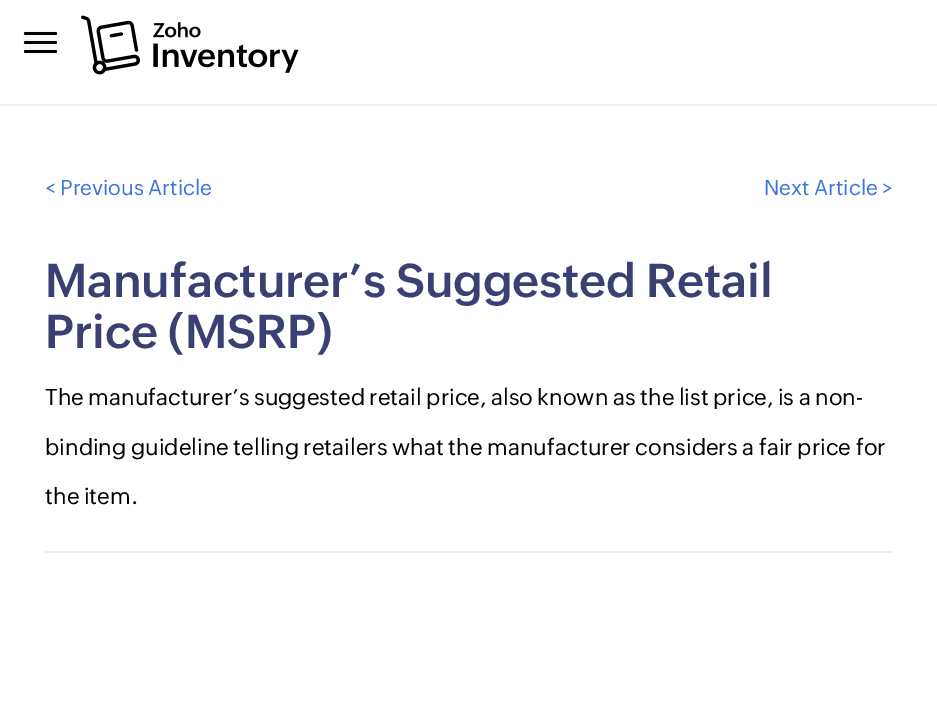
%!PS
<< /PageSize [937 715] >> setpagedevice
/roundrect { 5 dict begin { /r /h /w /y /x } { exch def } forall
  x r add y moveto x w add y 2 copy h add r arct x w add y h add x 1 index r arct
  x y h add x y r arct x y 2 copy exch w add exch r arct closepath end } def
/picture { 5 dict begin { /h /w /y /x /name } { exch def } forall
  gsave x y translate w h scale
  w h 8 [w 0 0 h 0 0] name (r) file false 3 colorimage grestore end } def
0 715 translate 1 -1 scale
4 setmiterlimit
1 setgray
0 0 937 715 rectfill
0.941 0.941 0.961 setrgbcolor
0 104 937 2 rectfill
0.965 setgray
23 30 36 24 6 roundrect fill
0 setgray
24 32 33 3 1.5 roundrect fill
24 41 33 3 1.5 roundrect fill
24 50 33 3 1.5 roundrect fill
(img1.rgb) 81 15 218 60 picture
/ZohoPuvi-Regular [21 0 0 -21 0 0] selectfont
0.235 0.451 0.863 setrgbcolor
45 195 moveto (< Previous Article) show
764 195 moveto (Next Article >) show
/ZohoPuvi-SemiBold [46.5 0 0 -46.5 0 0] selectfont
0.227 0.255 0.447 setrgbcolor
45 297 moveto (Manufacturer’s Suggested Retail) show
45 348 moveto (Price \(MSRP\)) show
/ZohoPuvi-Regular [22.5 0 0 -22.5 0 0] selectfont
0 setgray
45 405 moveto (The manufacturer’s suggested retail price, also known as the list price, is a non-) show
45 455 moveto (binding guideline telling retailers what the manufacturer considers a fair price for) show
45 504 moveto (the item.) show
0.933 setgray
45 551 848 2 rectfill
showpage
